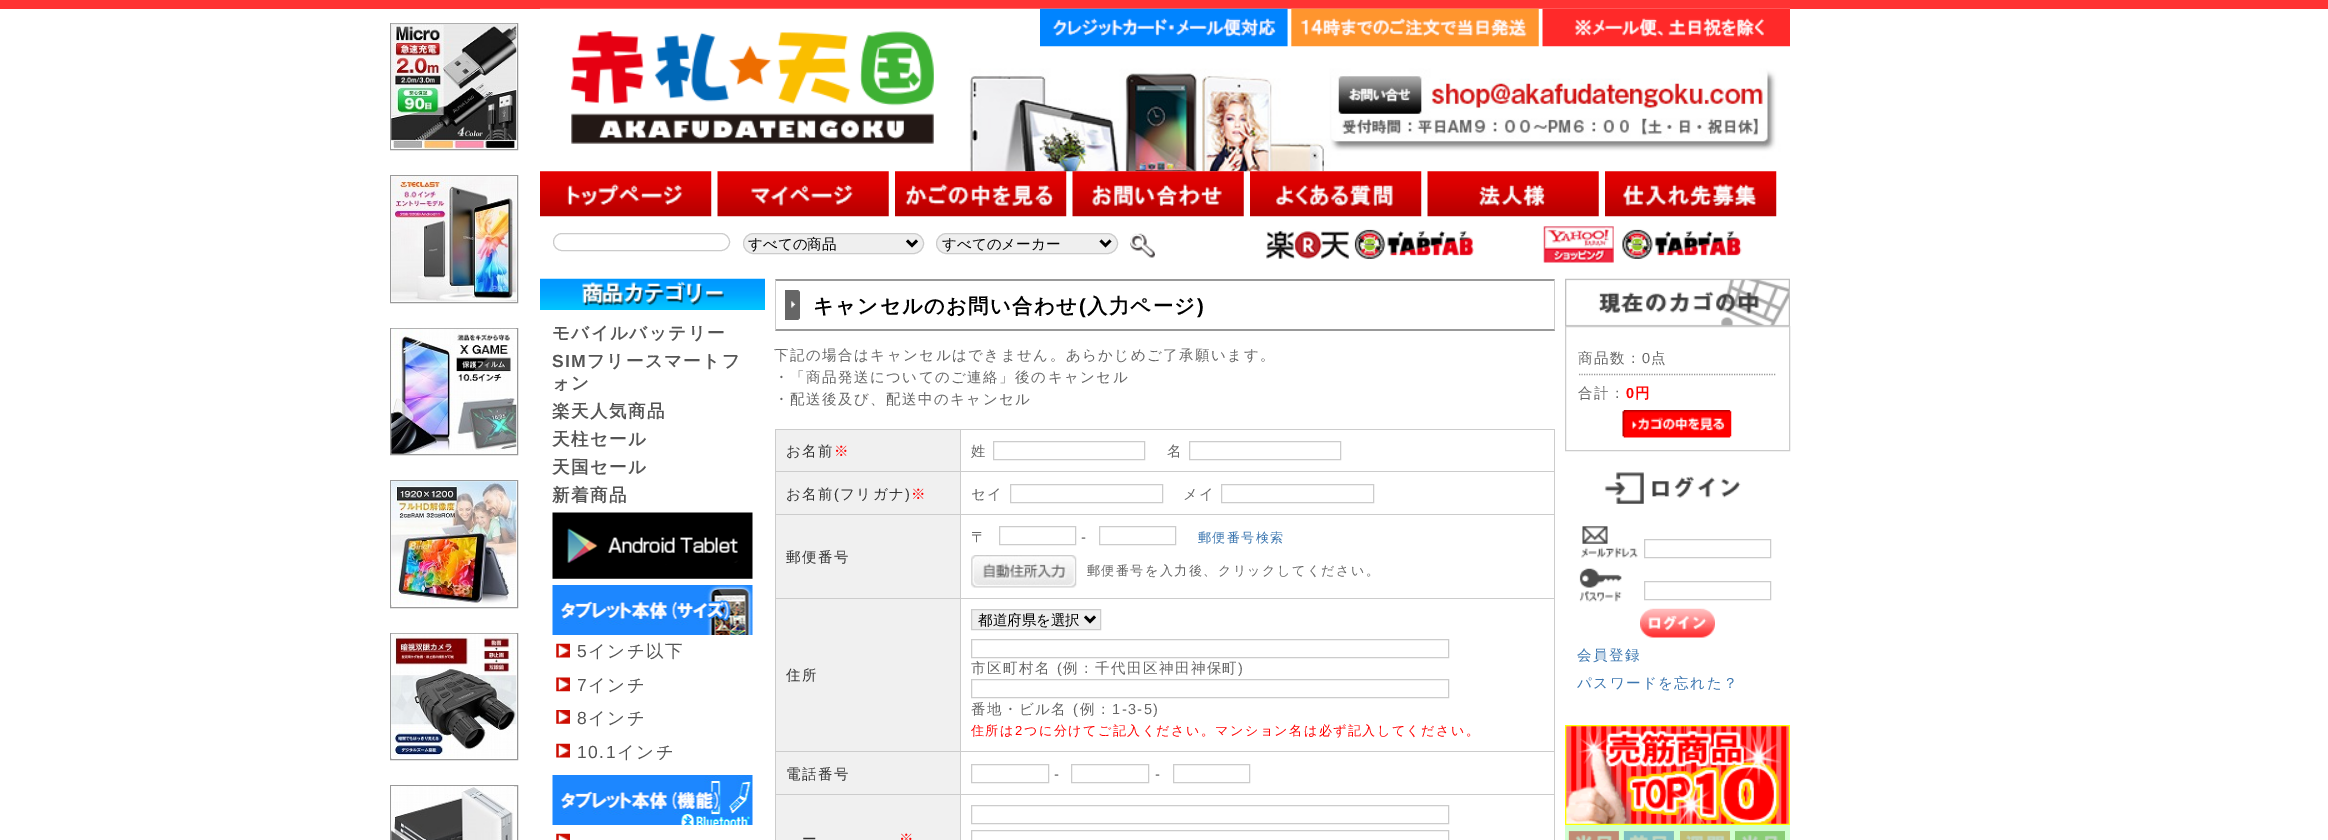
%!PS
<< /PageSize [2328 840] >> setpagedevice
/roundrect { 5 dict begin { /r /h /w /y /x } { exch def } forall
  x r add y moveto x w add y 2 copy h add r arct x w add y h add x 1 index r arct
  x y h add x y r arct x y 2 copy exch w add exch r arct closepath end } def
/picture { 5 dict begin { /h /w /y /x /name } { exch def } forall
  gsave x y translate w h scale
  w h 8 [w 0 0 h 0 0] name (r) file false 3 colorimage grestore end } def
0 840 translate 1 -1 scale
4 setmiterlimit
1 setgray
0 0 2328 840 rectfill
1 0.2 0.2 setrgbcolor
0 0 2328 9 rectfill
(img1.rgb) 540 8 1250 164 picture
(img2.rgb) 571 31 363 113 picture
(img3.rgb) 1040 8 750 39 picture
(img4.rgb) 540 171 172 46 picture
(img5.rgb) 717 171 172 46 picture
(img6.rgb) 895 171 172 46 picture
(img7.rgb) 1072 171 172 46 picture
(img8.rgb) 1250 171 172 46 picture
(img9.rgb) 1427 171 172 46 picture
(img10.rgb) 1605 171 172 46 picture
0.6 setgray
390.5 23.5 127 126 rectstroke
(img11.rgb) 391 23 126 126 picture
390.5 175.5 127 127 rectstroke
(img12.rgb) 391 176 126 126 picture
390.5 328.5 127 126 rectstroke
(img13.rgb) 391 328 126 126 picture
390.5 480.5 127 127 rectstroke
(img14.rgb) 391 481 126 124 picture
390.5 633.5 127 126 rectstroke
(img15.rgb) 391 633 126 125 picture
390.5 785.5 127 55 rectstroke
(img16.rgb) 391 786 123 54 picture
0.8 setgray
553.5 233.5 176 17 8.5 roundrect stroke
0.937 setgray
743.5 233.5 180 20 10 roundrect gsave fill grestore
0.8 setgray
stroke
0 setgray
2.5 setlinewidth
newpath 907 240.5 moveto 912 245.5 lineto 917 240.5 lineto stroke
/WenQuanYiZenHei-Medium [14.5 0 0 -14.5 0 0] selectfont
748 249 moveto (すべての商品) show
0.937 setgray
936.5 233.5 181 20 10 roundrect gsave fill grestore
0.8 setgray
1 setlinewidth
stroke
0 setgray
2.5 setlinewidth
newpath 1100.5 240.5 moveto 1105.5 245.5 lineto 1110.5 240.5 lineto stroke
942 249 moveto (すべてのメーカー) show
(img17.rgb) 1130 233 25 25 picture
(img18.rgb) 1266 229 208 30 picture
(img19.rgb) 1543 226 199 37 picture
(img20.rgb) 540 278 225 32 picture
/WenQuanYiZenHei-Bold [17.5 0 0 -17.5 0 0] selectfont
0.333 setgray
552 339 moveto 1.45 0 (モバイルバッテリー) ashow
/LiberationSans-Bold [17.5 0 0 -17.5 0 0] selectfont
552 367 moveto 1.45 0 (SIM) ashow
/WenQuanYiZenHei-Bold [17.5 0 0 -17.5 0 0] selectfont
587 367 moveto 1.45 0 (フリースマートフ) ashow
552 389 moveto 1.45 0 (ォン) ashow
552 417 moveto 1.45 0 (楽天人気商品) ashow
552 445 moveto 1.45 0 (天柱セール) ashow
552 473 moveto 1.45 0 (天国セール) ashow
552 501 moveto 1.45 0 (新着商品) ashow
(img21.rgb) 552 512 201 67 picture
(img22.rgb) 552 585 201 50 picture
(img23.rgb) 556 643 14 15 picture
/LiberationSans-Regular [17.5 0 0 -17.5 0 0] selectfont
577 657 moveto 1.45 0 (5) ashow
/WenQuanYiZenHei-Medium [17.5 0 0 -17.5 0 0] selectfont
588 657 moveto 1.45 0 (インチ以下) ashow
(img24.rgb) 556 677 14 15 picture
/LiberationSans-Regular [17.5 0 0 -17.5 0 0] selectfont
577 691 moveto 1.45 0 (7) ashow
/WenQuanYiZenHei-Medium [17.5 0 0 -17.5 0 0] selectfont
588 691 moveto 1.45 0 (インチ) ashow
(img25.rgb) 556 710 14 14 picture
/LiberationSans-Regular [17.5 0 0 -17.5 0 0] selectfont
577 724 moveto 1.45 0 (8) ashow
/WenQuanYiZenHei-Medium [17.5 0 0 -17.5 0 0] selectfont
588 724 moveto 1.45 0 (インチ) ashow
(img23.rgb) 556 743 14 15 picture
/LiberationSans-Regular [17.5 0 0 -17.5 0 0] selectfont
577 758 moveto 1.45 0 (10.1) ashow
/WenQuanYiZenHei-Medium [17.5 0 0 -17.5 0 0] selectfont
617 758 moveto 1.45 0 (インチ) ashow
(img26.rgb) 552 775 201 50 picture
(img27.rgb) 556 833 14 7 picture
(img28.rgb) 785 290 15 30 picture
0.6 setgray
newpath 775 279 moveto 1555 279 lineto 1554 281 lineto 776 281 lineto closepath fill
0.8 setgray
newpath 1555 279 moveto 1555 331 lineto 1554 329 lineto 1554 281 lineto closepath fill
0.6 setgray
newpath 1555 331 moveto 775 331 lineto 776 329 lineto 1554 329 lineto closepath fill
0.8 setgray
newpath 775 331 moveto 775 279 lineto 776 281 lineto 776 329 lineto closepath fill
/WenQuanYiZenHei-Bold [20.25 0 0 -20.25 0 0] selectfont
0 setgray
813 313 moveto 1.45 0 (キャンセルのお問い合わせ) ashow
/LiberationSans-Bold [20.25 0 0 -20.25 0 0] selectfont
1079 313 moveto 1.45 0 (\() ashow
/WenQuanYiZenHei-Bold [20.25 0 0 -20.25 0 0] selectfont
1087 313 moveto 1.45 0 (入力ページ) ashow
/LiberationSans-Bold [20.25 0 0 -20.25 0 0] selectfont
1197 313 moveto 1.45 0 (\)) ashow
/WenQuanYiZenHei-Medium [14.5 0 0 -14.5 0 0] selectfont
0.4 setgray
774 360 moveto 1.45 0 (下記の場合はキャンセルはできません。あらかじめご了承願います。) ashow
774 382 moveto 1.45 0 (・「商品発送についてのご連絡」後のキャンセル) ashow
774 404 moveto 1.45 0 (・配送後及び、配送中のキャンセル) ashow
0.8 setgray
775 429 780 1 rectfill
775 429 1 411 rectfill
0.941 setgray
776 430 184 41 rectfill
0.8 setgray
960 794 1 46 rectfill
1554 429 1 411 rectfill
960 794 595 1 rectfill
960 751 1 44 rectfill
960 751 595 1 rectfill
960 598 1 155 rectfill
960 598 595 1 rectfill
960 514 1 85 rectfill
960 514 595 1 rectfill
960 471 1 44 rectfill
960 471 595 1 rectfill
960 429 1 44 rectfill
775 471 186 1 rectfill
0.2 setgray
786 456 moveto 1.45 0 (お名前) ashow
1 0 0 setrgbcolor
834 456 moveto 1.45 0 (※) ashow
0.4 setgray
971 456 moveto 1.45 0 (姓) ashow
0.8 setgray
1 setlinewidth
993.5 441.5 151 18 rectstroke
0.4 setgray
1167 456 moveto 1.45 0 (名) ashow
0.8 setgray
1189.5 441.5 151 18 rectstroke
0.941 setgray
776 472 184 42 rectfill
0.8 setgray
775 514 186 1 rectfill
0.2 setgray
786 499 moveto 1.45 0 (お名前) ashow
/LiberationSans-Regular [14.5 0 0 -14.5 0 0] selectfont
834 499 moveto 1.45 0 (\() ashow
/WenQuanYiZenHei-Medium [14.5 0 0 -14.5 0 0] selectfont
840 499 moveto 1.45 0 (フリガナ) ashow
/LiberationSans-Regular [14.5 0 0 -14.5 0 0] selectfont
905 499 moveto 1.45 0 (\)) ashow
/WenQuanYiZenHei-Medium [14.5 0 0 -14.5 0 0] selectfont
1 0 0 setrgbcolor
911 499 moveto 1.45 0 (※) ashow
0.4 setgray
971 499 moveto 1.45 0 (セイ) ashow
0.8 setgray
1010.5 484.5 152 18 rectstroke
0.4 setgray
1183 499 moveto 1.45 0 (メイ) ashow
0.8 setgray
1221.5 484.5 152 18 rectstroke
0.941 setgray
776 515 184 83 rectfill
0.8 setgray
775 598 186 1 rectfill
0.2 setgray
786 562 moveto 1.45 0 (郵便番号) ashow
0.4 setgray
971 542 moveto 1.45 0 (〒) ashow
0.8 setgray
999.5 526.5 76 18 rectstroke
/LiberationSans-Regular [14.5 0 0 -14.5 0 0] selectfont
0.4 setgray
1081 542 moveto 1.45 0 (-) ashow
0.8 setgray
1099.5 526.5 76 18 rectstroke
/WenQuanYiZenHei-Medium [13.05 0 0 -13.05 0 0] selectfont
0.227 0.459 0.686 setrgbcolor
1198 542 moveto 1.45 0 (郵便番号検索) ashow
(img29.rgb) 971 555 106 33 picture
0.4 setgray
1087 575 moveto 1.45 0 (郵便番号を入力後、クリックしてください。) ashow
0.941 setgray
776 599 184 195 rectfill
0.8 setgray
775 751 186 1 rectfill
/WenQuanYiZenHei-Medium [14.5 0 0 -14.5 0 0] selectfont
0.2 setgray
786 680 moveto 1.45 0 (住所) ashow
0.937 setgray
newpath 971.5 609.5 moveto 1100.5 609.5 lineto 1100.5 629.5 lineto 971.5 629.5 lineto closepath gsave fill grestore
0.8 setgray
stroke
0 setgray
2.5 setlinewidth
newpath 1085 616.5 moveto 1090 621.5 lineto 1095 616.5 lineto stroke
978 625 moveto (都道府県を選択) show
0.8 setgray
1 setlinewidth
971.5 639.5 477 18 rectstroke
0.4 setgray
971 673 moveto 1.45 0 (市区町村名) ashow
/LiberationSans-Regular [14.5 0 0 -14.5 0 0] selectfont
1057 673 moveto 1.45 0 (\() ashow
/WenQuanYiZenHei-Medium [14.5 0 0 -14.5 0 0] selectfont
1063 673 moveto 1.45 0 (例：千代田区神田神保町) ashow
/LiberationSans-Regular [14.5 0 0 -14.5 0 0] selectfont
1238 673 moveto 1.45 0 (\)) ashow
0.8 setgray
971.5 679.5 477 18 rectstroke
/WenQuanYiZenHei-Medium [14.5 0 0 -14.5 0 0] selectfont
0.4 setgray
971 714 moveto 1.45 0 (番地・ビル名) ashow
/LiberationSans-Regular [14.5 0 0 -14.5 0 0] selectfont
1073 714 moveto 1.45 0 (\() ashow
/WenQuanYiZenHei-Medium [14.5 0 0 -14.5 0 0] selectfont
1080 714 moveto 1.45 0 (例：) ashow
/LiberationSans-Regular [14.5 0 0 -14.5 0 0] selectfont
1112 714 moveto 1.45 0 (1-3-5\)) ashow
/WenQuanYiZenHei-Medium [13.05 0 0 -13.05 0 0] selectfont
1 0 0 setrgbcolor
971 735 moveto 1.45 0 (住所は) ashow
/LiberationSans-Regular [13.05 0 0 -13.05 0 0] selectfont
1015 735 moveto 1.45 0 (2) ashow
/WenQuanYiZenHei-Medium [13.05 0 0 -13.05 0 0] selectfont
1024 735 moveto 1.45 0 (つに分けてご記入ください。マンション名は必ず記入してください。) ashow
0.8 setgray
775 794 186 1 rectfill
/WenQuanYiZenHei-Medium [14.5 0 0 -14.5 0 0] selectfont
0.2 setgray
786 779 moveto 1.45 0 (電話番号) ashow
0.8 setgray
971.5 764.5 77 18 rectstroke
/LiberationSans-Regular [14.5 0 0 -14.5 0 0] selectfont
0.4 setgray
1054 779 moveto 1.45 0 (-) ashow
0.8 setgray
1071.5 764.5 77 18 rectstroke
0.4 setgray
1155 779 moveto 1.45 0 (-) ashow
0.8 setgray
1173.5 764.5 76 18 rectstroke
0.941 setgray
776 795 184 45 rectfill
/WenQuanYiZenHei-Medium [14.5 0 0 -14.5 0 0] selectfont
0.2 setgray
802 844 moveto 1.45 0 (ー) ashow
1 0 0 setrgbcolor
899 844 moveto 1.45 0 (※) ashow
0.8 setgray
971.5 805.5 477 18 rectstroke
971.5 830.5 477 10 rectstroke
(img30.rgb) 1565 278 225 48 picture
1565.5 326.5 224 124 rectstroke
0.6 setgray
1.2 setlinewidth
[1.25 1.25] 0 setdash
newpath 1579 374.5 moveto 1776 374.5 lineto stroke
0.4 setgray
1578 363 moveto 1.45 0 (商品数：) ashow
/LiberationSans-Regular [14.5 0 0 -14.5 0 0] selectfont
1642 363 moveto 1.45 0 (0) ashow
/WenQuanYiZenHei-Medium [14.5 0 0 -14.5 0 0] selectfont
1651 363 moveto 1.45 0 (点) ashow
1578 398 moveto 1.45 0 (合計：) ashow
/LiberationSans-Bold [14.5 0 0 -14.5 0 0] selectfont
1 0 0 setrgbcolor
1626 398 moveto 1.45 0 (0) ashow
/WenQuanYiZenHei-Bold [14.5 0 0 -14.5 0 0] selectfont
1635 398 moveto 1.45 0 (円) ashow
(img31.rgb) 1622 410 110 28 picture
(img32.rgb) 1604 472 137 32 picture
(img33.rgb) 1581 526 57 32 picture
0.8 setgray
1 setlinewidth
[] 0 setdash
1644.5 539.5 126 18 rectstroke
(img34.rgb) 1579 568 43 34 picture
1644.5 581.5 126 18 rectstroke
(img35.rgb) 1640 608 75 30 picture
/WenQuanYiZenHei-Medium [14.5 0 0 -14.5 0 0] selectfont
0.227 0.459 0.686 setrgbcolor
1577 660 moveto 1.45 0 (会員登録) ashow
1577 688 moveto 1.45 0 (パスワードを忘れた？) ashow
(img36.rgb) 1565 725 225 100 picture
0.816 1 0.816 setrgbcolor
1565 825 225 15 rectfill
0.651 0.78 0.651 setrgbcolor
1569 831 50 9 rectfill
(img37.rgb) 1568 831 51 9 picture
1624 831 50 9 rectfill
(img38.rgb) 1623 831 51 9 picture
1680 831 50 9 rectfill
(img39.rgb) 1680 831 50 9 picture
1735 831 50 9 rectfill
(img40.rgb) 1735 831 50 9 picture
showpage
